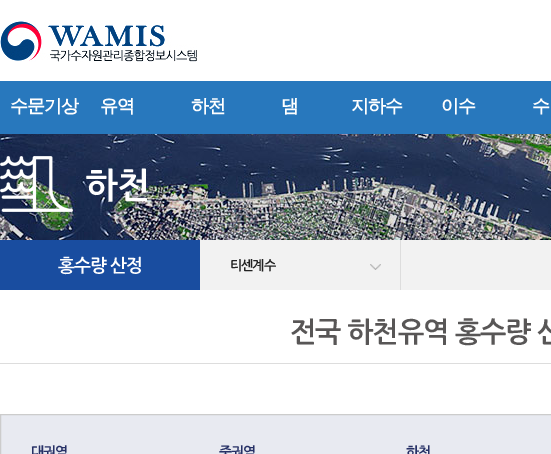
%!PS
<< /PageSize [551 454] >> setpagedevice
/picture { 5 dict begin { /h /w /y /x /name } { exch def } forall
  gsave x y translate w h scale
  w h 8 [w 0 0 h 0 0] name (r) file false 3 colorimage grestore end } def
0 454 translate 1 -1 scale
4 setmiterlimit
1 setgray
0 0 551 454 rectfill
(img1.rgb) 0 20 197 42 picture
0.157 0.471 0.741 setrgbcolor
0 81 551 53 rectfill
/WenQuanYiZenHei-Bold [18 0 0 -18 0 0] selectfont
1 setgray
10 112 moveto -1 0 (수문기상) ashow
100 112 moveto -1 0 (유역) ashow
191 112 moveto -1 0 (하천) ashow
281 112 moveto -1 0 (댐) ashow
351 112 moveto -1 0 (지하수) ashow
441 112 moveto -1 0 (이수) ashow
532 112 moveto -1 0 (수) ashow
(img2.rgb) 0 134 551 106 picture
(img3.rgb) 0 156 73 56 picture
/NanumGothic-Bold [35 0 0 -35 0 0] selectfont
85 198 moveto -1 0 (하천) ashow
0.949 setgray
200 240 351 50 rectfill
0.098 0.302 0.627 setrgbcolor
0 240 200 50 rectfill
/NanumGothic-Bold [18 0 0 -18 0 0] selectfont
1 setgray
58 272 moveto -1 0 (홍수량 산정) ashow
0.867 setgray
400 240 1 50 rectfill
(img4.rgb) 370 264 11 6 picture
/NanumGothic-Bold [13 0 0 -13 0 0] selectfont
0.133 setgray
230 270 moveto -1 0 (티센계수) ashow
0.867 setgray
0 363 551 1 rectfill
/NanumGothic-Bold [28 0 0 -28 0 0] selectfont
0.345 0.337 0.337 setrgbcolor
290 342 moveto -0.5 0 32 -1 0 (전국 하천유역 홍수량 산) awidthshow
0.91 0.918 0.945 setrgbcolor
newpath 0.5 414.5 moveto 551.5 414.5 lineto 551.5 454.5 lineto 0.5 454.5 lineto closepath gsave fill grestore
0.8 setgray
stroke
/NanumGothic-Bold [14 0 0 -14 0 0] selectfont
0.149 0.188 0.4 setrgbcolor
31 457 moveto -1 0 (대권역) ashow
219 457 moveto -1 0 (중권역) ashow
406 457 moveto -1 0 (하천) ashow
showpage
